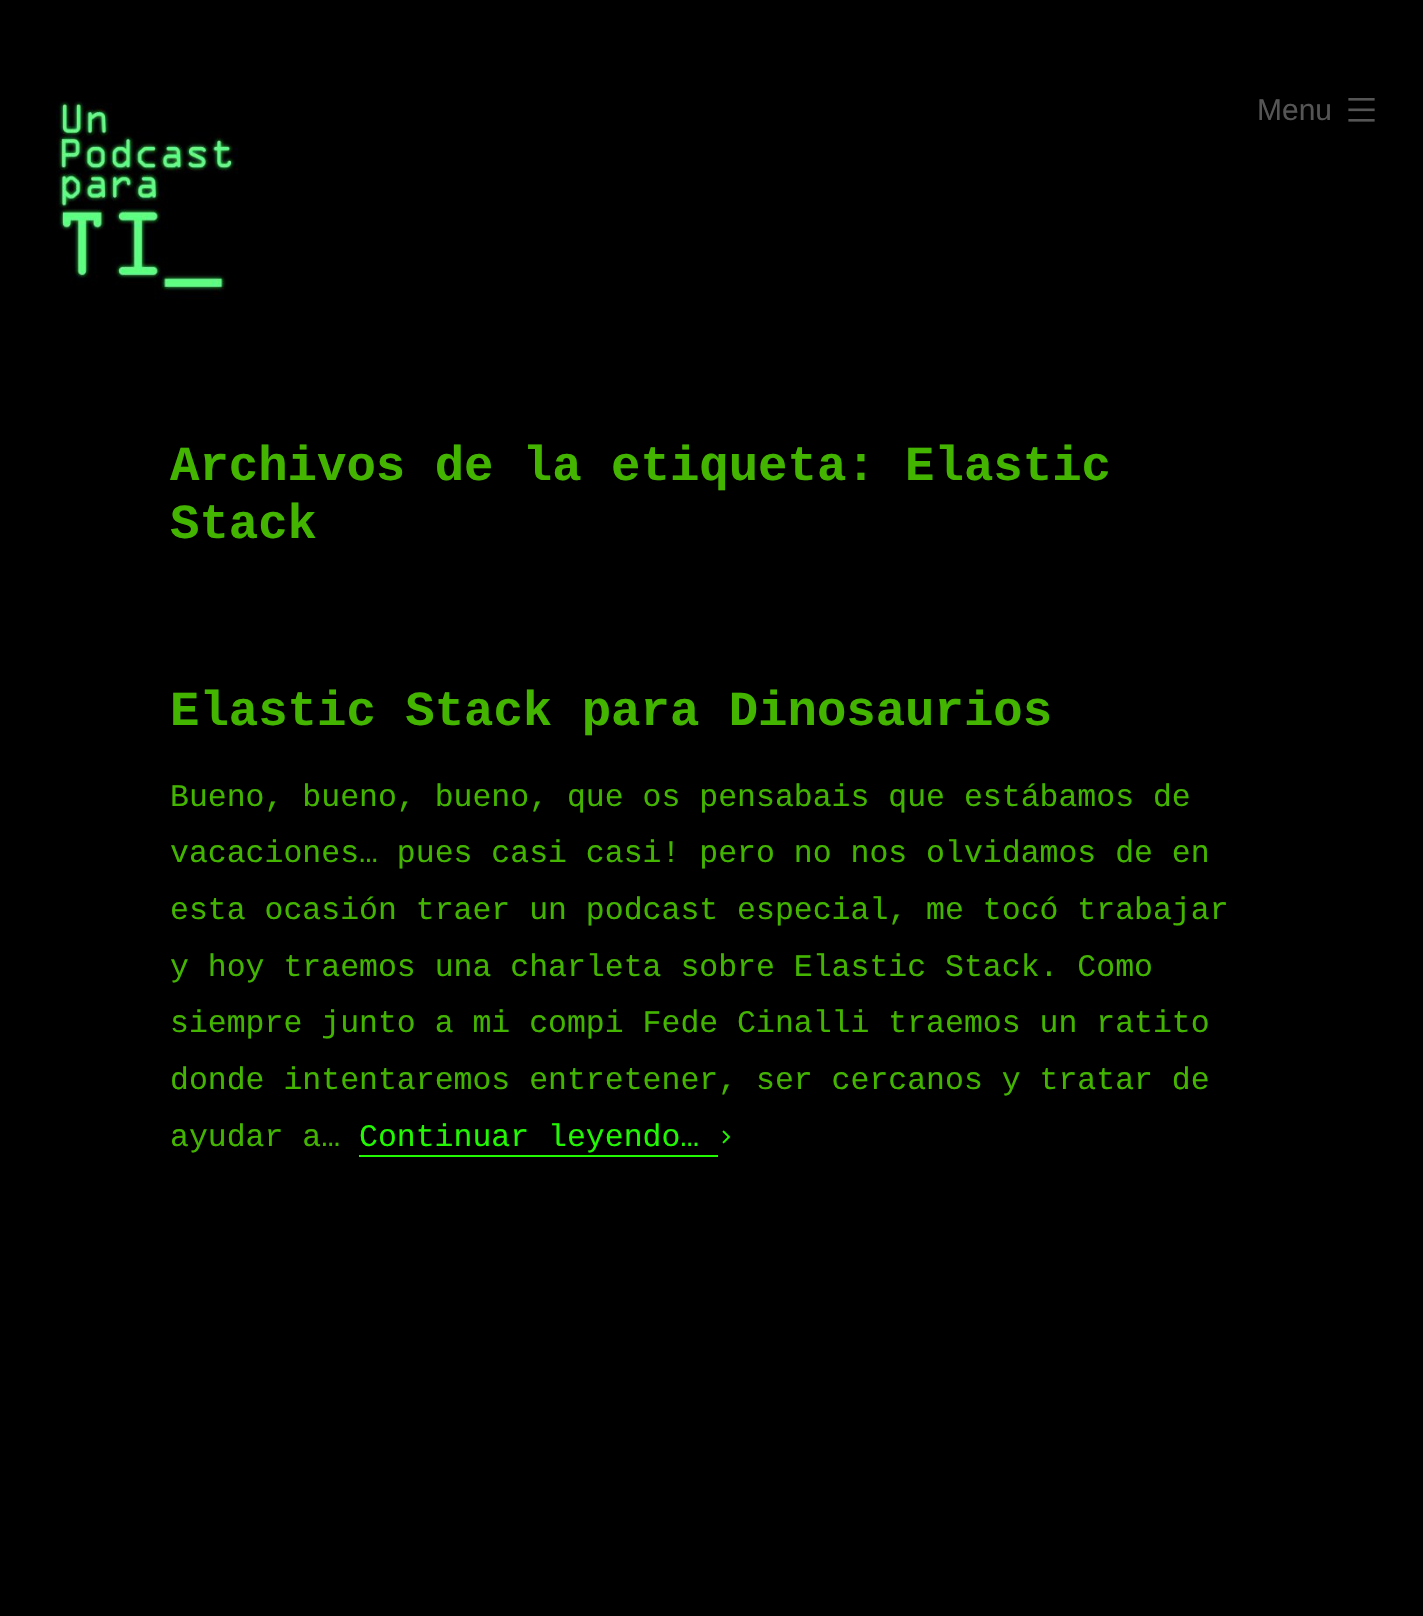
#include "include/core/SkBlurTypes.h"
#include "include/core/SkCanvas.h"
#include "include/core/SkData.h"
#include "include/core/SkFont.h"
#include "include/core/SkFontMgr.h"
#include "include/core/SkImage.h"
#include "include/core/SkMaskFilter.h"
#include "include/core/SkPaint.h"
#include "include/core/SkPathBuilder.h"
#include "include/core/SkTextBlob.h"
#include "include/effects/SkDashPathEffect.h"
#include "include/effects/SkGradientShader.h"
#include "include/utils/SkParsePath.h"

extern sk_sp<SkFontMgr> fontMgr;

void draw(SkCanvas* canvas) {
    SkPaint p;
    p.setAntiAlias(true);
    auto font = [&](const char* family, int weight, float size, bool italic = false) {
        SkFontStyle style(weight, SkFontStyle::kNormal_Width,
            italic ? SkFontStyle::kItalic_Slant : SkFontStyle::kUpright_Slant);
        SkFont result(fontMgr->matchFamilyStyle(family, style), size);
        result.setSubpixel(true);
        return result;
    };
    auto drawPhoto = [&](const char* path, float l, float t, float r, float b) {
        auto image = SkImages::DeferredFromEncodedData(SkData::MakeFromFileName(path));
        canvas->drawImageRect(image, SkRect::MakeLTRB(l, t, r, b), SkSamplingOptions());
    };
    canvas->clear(0xFF000000);
    drawPhoto("media/1.png", 56, 101, 239, 299);
    auto font1 = font("Liberation Sans", 400, 30);
    p.setColor(0xFF555555);
    canvas->drawString("Menu", 1257, 120, font1, p);
    drawPhoto("media/2.png", 1348, 98, 1375, 122);
    auto font2 = font("Liberation Mono", 700, 49);
    p.setColor(0xFF43B501);
    {
        const struct { const char* s; float x, y; } items[] = {
            {"Archivos de la etiqueta: Elastic", 170, 480},
            {"Stack", 170, 538},
            {"Elastic Stack para Dinosaurios", 170, 725},
        };
        for (auto [s, x, y] : items) {
            canvas->drawString(s, x, y, font2, p);
        }
    }
    auto font3 = font("Liberation Mono", 400, 31.5f);
    {
        const struct { const char* s; float x, y; } items[] = {
            {"Bueno, bueno, bueno, que os pensabais que estábamos de", 170, 806},
            {"vacaciones… pues casi casi! pero no nos olvidamos de en", 170, 862},
            {"esta ocasión traer un podcast especial, me tocó trabajar", 170, 919},
            {"y hoy traemos una charleta sobre Elastic Stack. Como", 170, 976},
            {"siempre junto a mi compi Fede Cinalli traemos un ratito", 170, 1032},
            {"donde intentaremos entretener, ser cercanos y tratar de", 170, 1089},
            {"ayudar a…", 170, 1146},
        };
        for (auto [s, x, y] : items) {
            canvas->drawString(s, x, y, font3, p);
        }
    }
    p.setColor(0xFF22F801);
    canvas->drawString("Continuar leyendo…", 359, 1146, font3, p);
    canvas->drawRect(SkRect::MakeLTRB(359, 1155, 718, 1157), p);
    drawPhoto("media/3.png", 722, 1130, 731, 1144);
}
